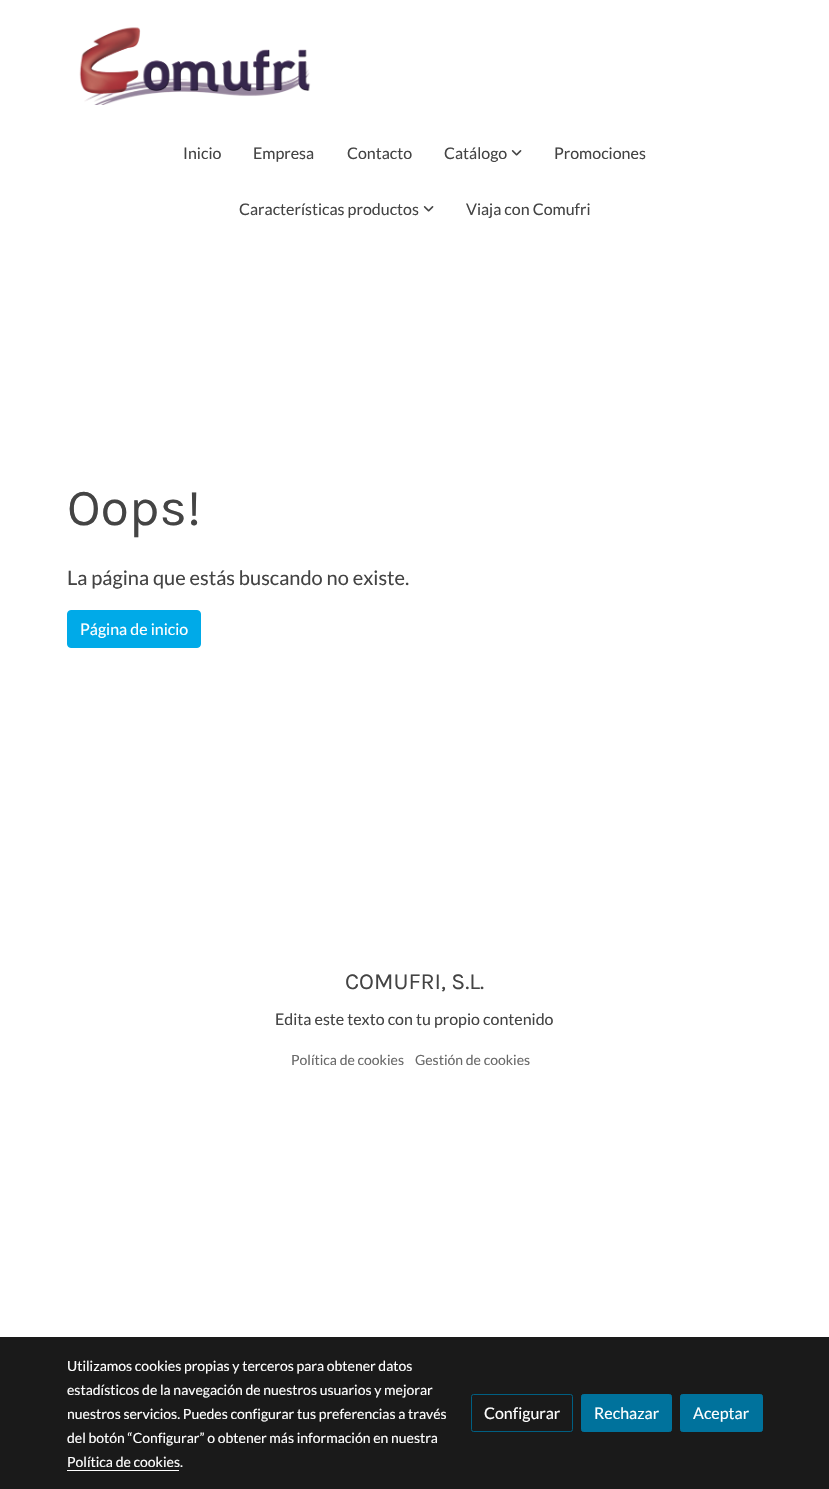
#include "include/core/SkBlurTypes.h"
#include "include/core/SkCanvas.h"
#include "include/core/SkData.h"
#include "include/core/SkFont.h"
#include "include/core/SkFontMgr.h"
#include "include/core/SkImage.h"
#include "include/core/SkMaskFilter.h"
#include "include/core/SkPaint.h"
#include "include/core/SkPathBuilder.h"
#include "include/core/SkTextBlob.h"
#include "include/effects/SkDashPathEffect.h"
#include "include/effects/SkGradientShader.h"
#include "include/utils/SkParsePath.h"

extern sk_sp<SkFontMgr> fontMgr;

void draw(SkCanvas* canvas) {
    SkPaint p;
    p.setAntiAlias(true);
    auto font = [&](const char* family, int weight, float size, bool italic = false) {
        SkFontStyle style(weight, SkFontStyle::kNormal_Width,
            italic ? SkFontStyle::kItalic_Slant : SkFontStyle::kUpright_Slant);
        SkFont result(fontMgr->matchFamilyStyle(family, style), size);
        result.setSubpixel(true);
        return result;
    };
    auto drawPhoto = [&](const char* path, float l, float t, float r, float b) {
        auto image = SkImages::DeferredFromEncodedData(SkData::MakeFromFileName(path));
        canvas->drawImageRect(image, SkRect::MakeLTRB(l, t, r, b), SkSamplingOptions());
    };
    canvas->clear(0xFFFFFFFF);
    drawPhoto("media/1.png", 79, 27, 311, 105);
    auto font1 = font("Lato", 400, 16);
    p.setColor(0xFF444444);
    {
        const struct { const char* s; float x, y; } items[] = {
            {"Inicio", 183, 159},
            {"Empresa", 253, 159},
            {"Contacto", 347, 159},
            {"Catálogo", 444, 159},
        };
        for (auto [s, x, y] : items) {
            canvas->drawString(s, x, y, font1, p);
        }
    }
    drawPhoto("media/2.png", 511, 150, 522, 156);
    canvas->drawString("Promociones", 554, 159, font1, p);
    canvas->drawString("Características productos", 239, 215, font1, p);
    drawPhoto("media/2.png", 423, 206, 434, 212);
    canvas->drawString("Viaja con Comufri", 466, 215, font1, p);
    auto font2 = font("Karla", 400, 52);
    canvas->drawString("Oops!", 67, 525, font2, p);
    auto font3 = font("Lato", 400, 20);
    canvas->drawString("La página que estás buscando no existe.", 67, 585, font3, p);
    p.setColor(0xFF00AAE8);
    canvas->drawRoundRect(SkRect::MakeLTRB(67.5f, 610.5f, 200.5f, 647.5f), 3.5f, 3.5f, p);
    p.setStyle(SkPaint::kStroke_Style);
    p.setStrokeWidth(1);
    canvas->drawRoundRect(SkRect::MakeLTRB(67.5f, 610.5f, 200.5f, 647.5f), 3.5f, 3.5f, p);
    p.setStyle(SkPaint::kFill_Style);
    p.setColor(0xFFFFFFFF);
    canvas->drawString("Página de inicio", 80, 635, font1, p);
    auto font4 = font("Karla", 400, 23);
    p.setColor(0xFF444444);
    canvas->drawString("COMUFRI, S.L.", 345, 989, font4, p);
    canvas->drawString("Edita este texto con tu propio contenido", 275, 1025, font1, p);
    auto font5 = font("Lato", 400, 14);
    p.setColor(0xFF696969);
    canvas->drawString("Política de cookies", 291, 1065, font5, p);
    canvas->drawString("Gestión de cookies", 415, 1065, font5, p);
    p.setColor(0xFF1A1A1A);
    canvas->drawRect(SkRect::MakeLTRB(0, 1337, 829, 1489), p);
    p.setColor(0xFFFFFFFF);
    {
        const struct { const char* s; float x, y; } items[] = {
            {"Utilizamos cookies propias y terceros para obtener datos", 67, 1371},
            {"estadísticos de la navegación de nuestros usuarios y mejorar", 67, 1395},
            {"nuestros servicios. Puedes configurar tus preferencias a través", 67, 1419},
            {"del botón “Configurar” o obtener más información en nuestra", 67, 1443},
            {"Política de cookies.", 67, 1467},
        };
        for (auto [s, x, y] : items) {
            canvas->drawString(s, x, y, font5, p);
        }
    }
    canvas->drawRect(SkRect::MakeLTRB(67, 1470, 179, 1471), p);
    p.setStyle(SkPaint::kStroke_Style);
    p.setColor(0xFF005F82);
    canvas->drawRoundRect(SkRect::MakeLTRB(471.5f, 1394.5f, 572.5f, 1431.5f), 2, 2, p);
    p.setStyle(SkPaint::kFill_Style);
    p.setColor(0xFFFFFFFF);
    canvas->drawString("Configurar", 484, 1419, font1, p);
    p.setColor(0xFF00729C);
    canvas->drawRoundRect(SkRect::MakeLTRB(581.5f, 1394.5f, 671.5f, 1431.5f), 2, 2, p);
    p.setStyle(SkPaint::kStroke_Style);
    canvas->drawRoundRect(SkRect::MakeLTRB(581.5f, 1394.5f, 671.5f, 1431.5f), 2, 2, p);
    p.setStyle(SkPaint::kFill_Style);
    p.setColor(0xFFFFFFFF);
    canvas->drawString("Rechazar", 594, 1419, font1, p);
    p.setColor(0xFF00729C);
    canvas->drawRoundRect(SkRect::MakeLTRB(680.5f, 1394.5f, 762.5f, 1431.5f), 2, 2, p);
    p.setStyle(SkPaint::kStroke_Style);
    canvas->drawRoundRect(SkRect::MakeLTRB(680.5f, 1394.5f, 762.5f, 1431.5f), 2, 2, p);
    p.setStyle(SkPaint::kFill_Style);
    p.setColor(0xFFFFFFFF);
    canvas->drawString("Aceptar", 693, 1419, font1, p);
}
